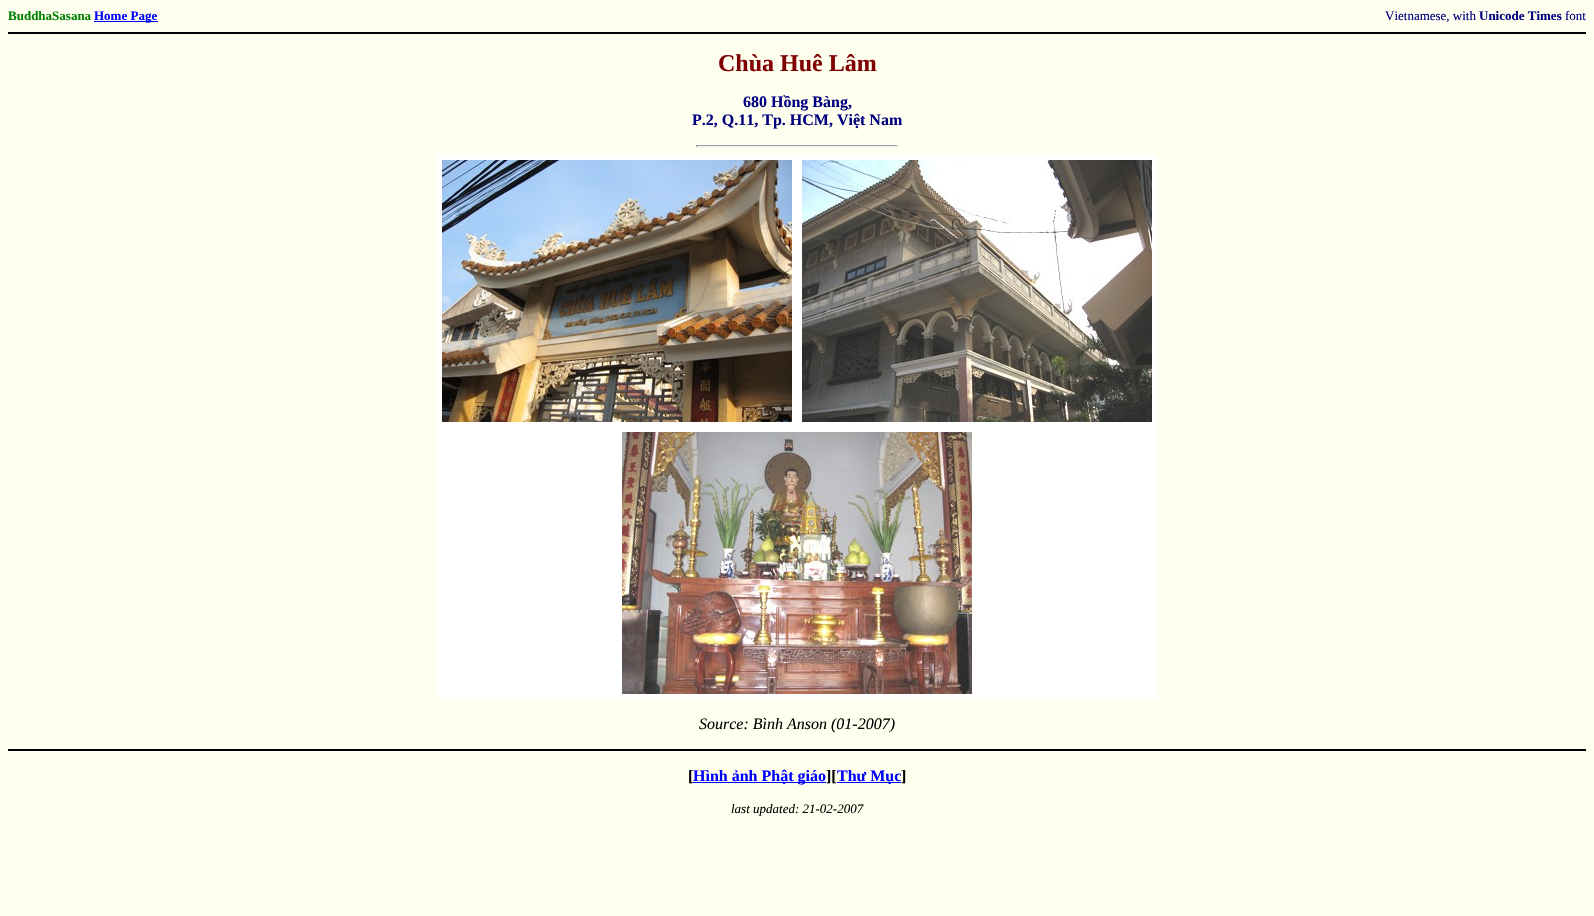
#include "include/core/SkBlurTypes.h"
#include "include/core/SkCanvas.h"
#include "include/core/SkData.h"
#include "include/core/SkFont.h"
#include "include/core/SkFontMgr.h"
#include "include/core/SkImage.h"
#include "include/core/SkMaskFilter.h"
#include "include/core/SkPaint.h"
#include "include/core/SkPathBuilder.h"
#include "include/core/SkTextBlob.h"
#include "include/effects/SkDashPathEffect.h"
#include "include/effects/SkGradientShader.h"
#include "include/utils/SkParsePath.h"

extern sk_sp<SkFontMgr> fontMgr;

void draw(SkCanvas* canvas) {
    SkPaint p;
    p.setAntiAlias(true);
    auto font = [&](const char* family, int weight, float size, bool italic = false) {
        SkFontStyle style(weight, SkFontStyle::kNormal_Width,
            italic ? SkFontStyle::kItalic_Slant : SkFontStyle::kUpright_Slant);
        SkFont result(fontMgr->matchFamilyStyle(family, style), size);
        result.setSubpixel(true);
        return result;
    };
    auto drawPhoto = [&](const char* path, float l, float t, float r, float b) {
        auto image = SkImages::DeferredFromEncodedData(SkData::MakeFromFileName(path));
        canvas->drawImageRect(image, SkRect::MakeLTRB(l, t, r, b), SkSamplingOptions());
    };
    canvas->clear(0xFFFFFFF0);
    auto font1 = font("Liberation Serif", 700, 13);
    p.setColor(0xFF008000);
    canvas->drawString("BuddhaSasana", 8, 20, font1, p);
    p.setColor(0xFF0000FF);
    canvas->drawRect(SkRect::MakeLTRB(94, 21, 158, 22), p);
    canvas->drawString("Home Page", 94, 20, font1, p);
    auto font2 = font("Liberation Serif", 400, 13);
    p.setColor(0xFF000080);
    canvas->drawString("Vietnamese, with", 1385, 20, font2, p);
    canvas->drawString("Unicode Times", 1479, 20, font1, p);
    canvas->drawString("font", 1565, 20, font2, p);
    p.setColor(0xFF000000);
    canvas->drawRect(SkRect::MakeLTRB(8, 32, 1586, 34), p);
    auto font3 = font("Liberation Serif", 700, 24);
    p.setColor(0xFF800000);
    canvas->drawString("Chùa Huê Lâm", 718, 71, font3, p);
    auto font4 = font("Liberation Serif", 700, 16);
    p.setColor(0xFF000080);
    canvas->drawString("680 Hồng Bàng,", 743, 107, font4, p);
    canvas->drawString("P.2, Q.11, Tp. HCM, Việt Nam", 692, 125, font4, p);
    {
        const struct { float l, t, r, b; SkColor color; } items[] = {
            {696, 145, 898, 146, 0xFF9F9F9F},
            {897, 145, 898, 147, 0xFFEEEEEE},
            {696, 146, 898, 147, 0xFFEEEEEE},
            {696, 145, 697, 147, 0xFF9F9F9F},
            {437, 155, 1157, 699, 0xFFFFFFFF},
        };
        for (auto [l, t, r, b, color] : items) {
            p.setColor(color);
            canvas->drawRect(SkRect::MakeLTRB(l, t, r, b), p);
        }
    }
    drawPhoto("media/1.png", 442, 160, 792, 422);
    drawPhoto("media/2.png", 802, 160, 1152, 422);
    drawPhoto("media/3.png", 622, 432, 972, 694);
    auto font5 = font("Liberation Serif", 400, 16, true);
    p.setColor(0xFF000000);
    canvas->drawString("Source: Bình Anson (01-2007)", 699, 729, font5, p);
    canvas->drawRect(SkRect::MakeLTRB(8, 749, 1586, 751), p);
    canvas->drawString("[", 688, 781, font4, p);
    p.setColor(0xFF0000FF);
    canvas->drawRect(SkRect::MakeLTRB(693, 782, 826, 783), p);
    canvas->drawString("Hình ảnh Phật giáo", 693, 781, font4, p);
    p.setColor(0xFF000000);
    canvas->drawString("][", 826, 781, font4, p);
    p.setColor(0xFF0000FF);
    canvas->drawRect(SkRect::MakeLTRB(837, 782, 901, 783), p);
    canvas->drawString("Thư Mục", 837, 781, font4, p);
    p.setColor(0xFF000000);
    canvas->drawString("]", 901, 781, font4, p);
    auto font6 = font("Liberation Serif", 400, 13, true);
    canvas->drawString("last updated: 21-02-2007", 731, 813, font6, p);
}
